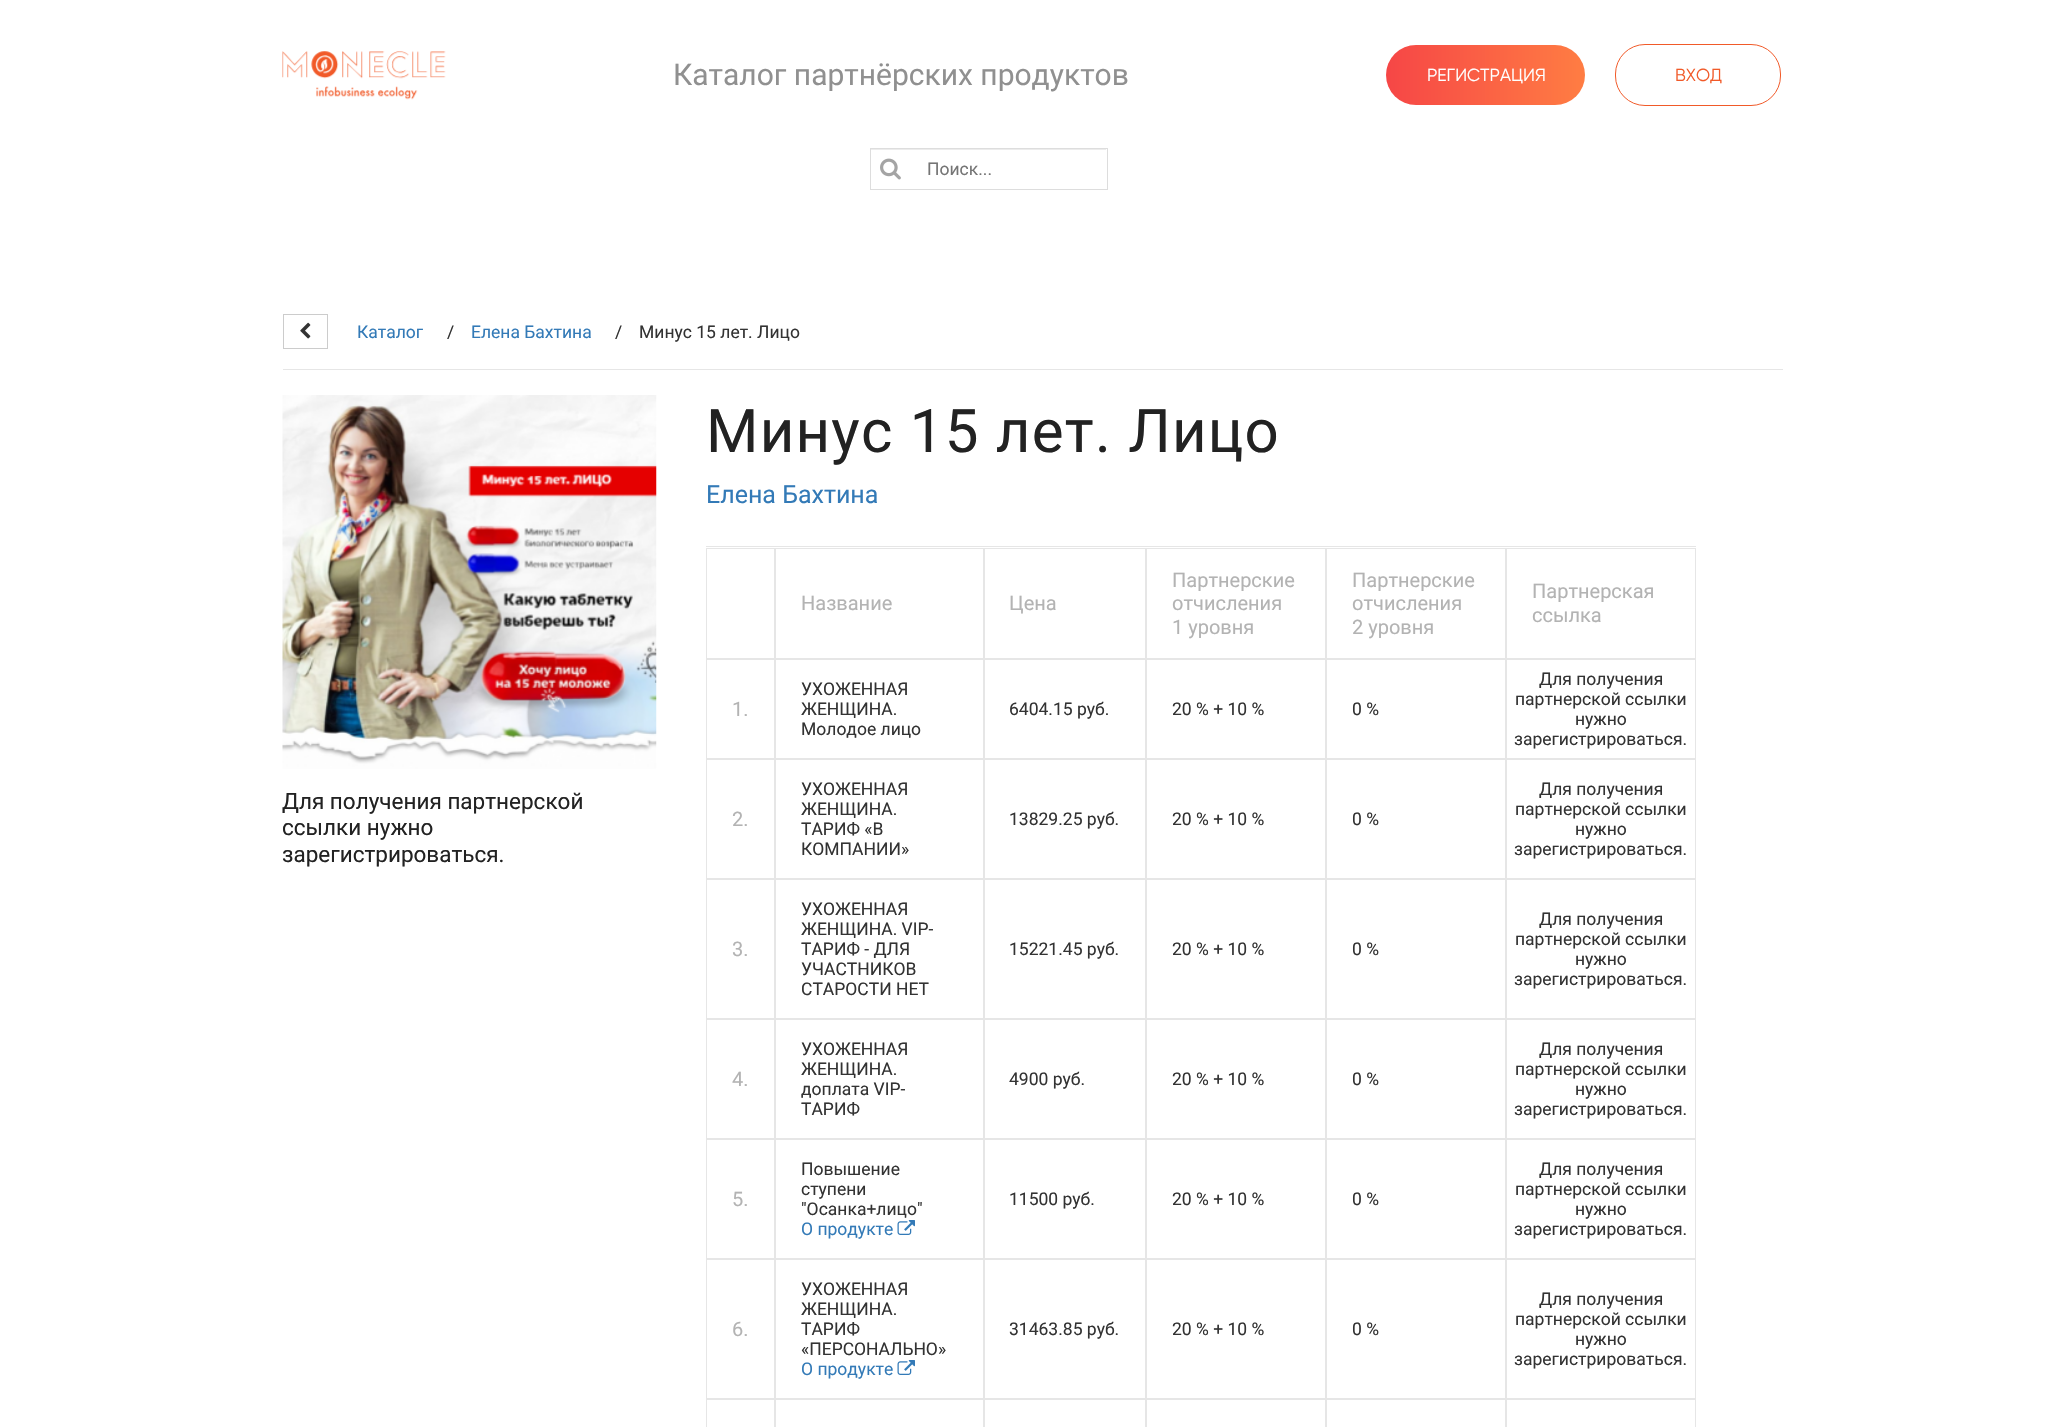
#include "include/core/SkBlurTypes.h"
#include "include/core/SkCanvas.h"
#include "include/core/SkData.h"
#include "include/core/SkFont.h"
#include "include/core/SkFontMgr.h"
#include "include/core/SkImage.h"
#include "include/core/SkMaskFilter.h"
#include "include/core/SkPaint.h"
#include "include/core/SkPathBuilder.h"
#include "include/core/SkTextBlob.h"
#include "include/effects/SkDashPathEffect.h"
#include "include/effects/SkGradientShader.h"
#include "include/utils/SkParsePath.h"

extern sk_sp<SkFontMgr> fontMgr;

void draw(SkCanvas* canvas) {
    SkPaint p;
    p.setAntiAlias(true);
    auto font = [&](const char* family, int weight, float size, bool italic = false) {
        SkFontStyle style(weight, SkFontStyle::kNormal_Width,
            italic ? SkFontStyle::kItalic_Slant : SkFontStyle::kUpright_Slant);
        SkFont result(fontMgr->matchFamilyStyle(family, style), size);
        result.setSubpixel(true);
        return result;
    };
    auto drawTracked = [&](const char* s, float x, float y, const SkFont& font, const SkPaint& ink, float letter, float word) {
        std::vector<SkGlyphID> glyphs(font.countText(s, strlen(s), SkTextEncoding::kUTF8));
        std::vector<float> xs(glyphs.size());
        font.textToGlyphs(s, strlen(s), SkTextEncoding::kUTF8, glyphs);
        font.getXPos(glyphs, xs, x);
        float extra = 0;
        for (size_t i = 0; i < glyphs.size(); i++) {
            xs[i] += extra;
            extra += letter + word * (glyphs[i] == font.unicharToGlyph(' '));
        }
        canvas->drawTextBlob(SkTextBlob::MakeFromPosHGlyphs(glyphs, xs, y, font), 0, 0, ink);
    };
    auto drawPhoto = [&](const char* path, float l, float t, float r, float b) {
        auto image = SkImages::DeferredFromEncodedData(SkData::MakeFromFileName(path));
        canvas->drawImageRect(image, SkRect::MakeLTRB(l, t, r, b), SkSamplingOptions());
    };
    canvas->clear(0xFFFFFFFF);
    drawPhoto("media/1.png", 282, 51, 446, 100);
    auto font1 = font("Roboto", 400, 30);
    p.setColor(0xFF909090);
    canvas->drawString("Каталог партнёрских продуктов", 673, 85, font1, p);
    {
        const SkColor colors[] = {0xFFF64646, 0xFFFF7D43};
        const float stops[] = {0, 1};
        const SkPoint ends[] = {{1386, 75}, {1585, 75}};
        p.setShader(SkGradientShader::MakeLinear(ends, colors, stops, 2, SkTileMode::kClamp));
        p.setAlpha(255);
    }
    canvas->drawRoundRect(SkRect::MakeLTRB(1386, 45, 1585, 105), 30, 30, p);
    auto font2 = font("Gilroy", 400, 17.5f);
    p.setShader(nullptr);
    p.setColor(0xFFFFFFFF);
    canvas->drawString("РЕГИСТРАЦИЯ", 1427, 81, font2, p);
    p.setStyle(SkPaint::kStroke_Style);
    p.setStrokeWidth(1);
    p.setColor(0xFFF15A29);
    canvas->drawRoundRect(SkRect::MakeLTRB(1615.5f, 44.5f, 1780.5f, 105.5f), 29.5f, 29.5f, p);
    p.setStyle(SkPaint::kFill_Style);
    canvas->drawString("ВХОД", 1675, 81, font2, p);
    p.setColor(0xFFECECEC);
    canvas->drawRect(SkRect::MakeLTRB(871, 149, 1106, 150), p);
    p.setStyle(SkPaint::kStroke_Style);
    p.setColor(0xFFDDDDDD);
    canvas->drawRect(SkRect::MakeLTRB(870.5f, 148.5f, 1107.5f, 189.5f), p);
    drawPhoto("media/2.png", 880, 158, 901, 180);
    auto font3 = font("Roboto", 400, 17.5f);
    p.setStyle(SkPaint::kFill_Style);
    p.setColor(0xFF757575);
    canvas->drawString("Поиск...", 927, 175, font3, p);
    p.setColor(0xFFE6E6E6);
    canvas->drawRect(SkRect::MakeLTRB(283, 369, 1783, 370), p);
    p.setStyle(SkPaint::kStroke_Style);
    p.setColor(0xFFCCCCCC);
    canvas->drawRect(SkRect::MakeLTRB(283.5f, 314.5f, 327.5f, 348.5f), p);
    drawPhoto("media/3.png", 300, 322, 311, 339);
    p.setStyle(SkPaint::kFill_Style);
    p.setColor(0xFF337AB7);
    canvas->drawString("Каталог", 357, 338, font3, p);
    p.setColor(0xFF333333);
    canvas->drawString("/", 447, 338, font3, p);
    p.setColor(0xFF337AB7);
    canvas->drawString("Елена Бахтина", 471, 338, font3, p);
    p.setColor(0xFF333333);
    canvas->drawString("/", 615, 338, font3, p);
    canvas->drawString("Минус 15 лет. Лицо", 639, 338, font3, p);
    drawPhoto("media/4.png", 282, 395, 657, 769);
    auto font4 = font("Roboto", 400, 22.5f);
    p.setColor(0xFF222222);
    {
        const struct { const char* s; float x, y; } items[] = {
            {"Для получения партнерской", 282, 809},
            {"ссылки нужно", 282, 835},
            {"зарегистрироваться.", 282, 862},
        };
        for (auto [s, x, y] : items) {
            canvas->drawString(s, x, y, font4, p);
        }
    }
    auto font5 = font("Roboto", 400, 60);
    drawTracked("Минус 15 лет. Лицо", 706, 452, font5, p, 1.25f, 0);
    auto font6 = font("Roboto", 400, 25);
    p.setColor(0xFF337AB7);
    canvas->drawString("Елена Бахтина", 706, 503, font6, p);
    p.setColor(0xFFE6E6E6);
    canvas->drawRect(SkRect::MakeLTRB(706, 546, 1696, 547), p);
    p.setStyle(SkPaint::kStroke_Style);
    canvas->drawRect(SkRect::MakeLTRB(706.5f, 548.5f, 774.5f, 658.5f), p);
    canvas->drawRect(SkRect::MakeLTRB(775.5f, 548.5f, 983.5f, 658.5f), p);
    auto font7 = font("Roboto", 400, 20);
    p.setStyle(SkPaint::kFill_Style);
    p.setColor(0xFFB3B3B3);
    canvas->drawString("Название", 801, 610, font7, p);
    p.setStyle(SkPaint::kStroke_Style);
    p.setColor(0xFFE6E6E6);
    canvas->drawRect(SkRect::MakeLTRB(984.5f, 548.5f, 1145.5f, 658.5f), p);
    p.setStyle(SkPaint::kFill_Style);
    p.setColor(0xFFB3B3B3);
    canvas->drawString("Цена", 1009, 610, font7, p);
    p.setStyle(SkPaint::kStroke_Style);
    p.setColor(0xFFE6E6E6);
    canvas->drawRect(SkRect::MakeLTRB(1146.5f, 548.5f, 1325.5f, 658.5f), p);
    p.setStyle(SkPaint::kFill_Style);
    p.setColor(0xFFB3B3B3);
    {
        const struct { const char* s; float x, y; } items[] = {
            {"Партнерские", 1172, 587},
            {"отчисления", 1172, 610},
            {"1 уровня", 1172, 634},
        };
        for (auto [s, x, y] : items) {
            canvas->drawString(s, x, y, font7, p);
        }
    }
    p.setStyle(SkPaint::kStroke_Style);
    p.setColor(0xFFE6E6E6);
    canvas->drawRect(SkRect::MakeLTRB(1326.5f, 548.5f, 1505.5f, 658.5f), p);
    p.setStyle(SkPaint::kFill_Style);
    p.setColor(0xFFB3B3B3);
    {
        const struct { const char* s; float x, y; } items[] = {
            {"Партнерские", 1352, 587},
            {"отчисления", 1352, 610},
            {"2 уровня", 1352, 634},
        };
        for (auto [s, x, y] : items) {
            canvas->drawString(s, x, y, font7, p);
        }
    }
    p.setStyle(SkPaint::kStroke_Style);
    p.setColor(0xFFE6E6E6);
    canvas->drawRect(SkRect::MakeLTRB(1506.5f, 548.5f, 1695.5f, 658.5f), p);
    p.setStyle(SkPaint::kFill_Style);
    p.setColor(0xFFB3B3B3);
    canvas->drawString("Партнерская", 1532, 598, font7, p);
    canvas->drawString("ссылка", 1532, 622, font7, p);
    p.setStyle(SkPaint::kStroke_Style);
    p.setColor(0xFFE6E6E6);
    canvas->drawRect(SkRect::MakeLTRB(706.5f, 659.5f, 774.5f, 758.5f), p);
    p.setStyle(SkPaint::kFill_Style);
    p.setColor(0xFFB3B3B3);
    canvas->drawString("1.", 732, 716, font7, p);
    p.setStyle(SkPaint::kStroke_Style);
    p.setColor(0xFFE6E6E6);
    canvas->drawRect(SkRect::MakeLTRB(775.5f, 659.5f, 983.5f, 758.5f), p);
    p.setStyle(SkPaint::kFill_Style);
    p.setColor(0xFF333333);
    {
        const struct { const char* s; float x, y; } items[] = {
            {"УХОЖЕННАЯ", 801, 695},
            {"ЖЕНЩИНА.", 801, 715},
            {"Молодое лицо", 801, 735},
        };
        for (auto [s, x, y] : items) {
            canvas->drawString(s, x, y, font3, p);
        }
    }
    p.setStyle(SkPaint::kStroke_Style);
    p.setColor(0xFFE6E6E6);
    canvas->drawRect(SkRect::MakeLTRB(984.5f, 659.5f, 1145.5f, 758.5f), p);
    p.setStyle(SkPaint::kFill_Style);
    p.setColor(0xFF333333);
    canvas->drawString("6404.15 руб.", 1009, 715, font3, p);
    p.setStyle(SkPaint::kStroke_Style);
    p.setColor(0xFFE6E6E6);
    canvas->drawRect(SkRect::MakeLTRB(1146.5f, 659.5f, 1325.5f, 758.5f), p);
    p.setStyle(SkPaint::kFill_Style);
    p.setColor(0xFF333333);
    canvas->drawString("20 % + 10 %", 1172, 715, font3, p);
    p.setStyle(SkPaint::kStroke_Style);
    p.setColor(0xFFE6E6E6);
    canvas->drawRect(SkRect::MakeLTRB(1326.5f, 659.5f, 1505.5f, 758.5f), p);
    p.setStyle(SkPaint::kFill_Style);
    p.setColor(0xFF333333);
    canvas->drawString("0 %", 1352, 715, font3, p);
    p.setStyle(SkPaint::kStroke_Style);
    p.setColor(0xFFE6E6E6);
    canvas->drawRect(SkRect::MakeLTRB(1506.5f, 659.5f, 1695.5f, 758.5f), p);
    p.setStyle(SkPaint::kFill_Style);
    p.setColor(0xFF333333);
    {
        const struct { const char* s; float x, y; } items[] = {
            {"Для получения", 1539, 685},
            {"партнерской ссылки", 1515, 705},
            {"нужно", 1575, 725},
            {"зарегистрироваться.", 1514, 745},
        };
        for (auto [s, x, y] : items) {
            canvas->drawString(s, x, y, font3, p);
        }
    }
    p.setStyle(SkPaint::kStroke_Style);
    p.setColor(0xFFE6E6E6);
    canvas->drawRect(SkRect::MakeLTRB(706.5f, 759.5f, 774.5f, 878.5f), p);
    p.setStyle(SkPaint::kFill_Style);
    p.setColor(0xFFB3B3B3);
    canvas->drawString("2.", 732, 826, font7, p);
    p.setStyle(SkPaint::kStroke_Style);
    p.setColor(0xFFE6E6E6);
    canvas->drawRect(SkRect::MakeLTRB(775.5f, 759.5f, 983.5f, 878.5f), p);
    p.setStyle(SkPaint::kFill_Style);
    p.setColor(0xFF333333);
    {
        const struct { const char* s; float x, y; } items[] = {
            {"УХОЖЕННАЯ", 801, 795},
            {"ЖЕНЩИНА.", 801, 815},
            {"ТАРИФ «В", 801, 835},
            {"КОМПАНИИ»", 801, 855},
        };
        for (auto [s, x, y] : items) {
            canvas->drawString(s, x, y, font3, p);
        }
    }
    p.setStyle(SkPaint::kStroke_Style);
    p.setColor(0xFFE6E6E6);
    canvas->drawRect(SkRect::MakeLTRB(984.5f, 759.5f, 1145.5f, 878.5f), p);
    p.setStyle(SkPaint::kFill_Style);
    p.setColor(0xFF333333);
    canvas->drawString("13829.25 руб.", 1009, 825, font3, p);
    p.setStyle(SkPaint::kStroke_Style);
    p.setColor(0xFFE6E6E6);
    canvas->drawRect(SkRect::MakeLTRB(1146.5f, 759.5f, 1325.5f, 878.5f), p);
    p.setStyle(SkPaint::kFill_Style);
    p.setColor(0xFF333333);
    canvas->drawString("20 % + 10 %", 1172, 825, font3, p);
    p.setStyle(SkPaint::kStroke_Style);
    p.setColor(0xFFE6E6E6);
    canvas->drawRect(SkRect::MakeLTRB(1326.5f, 759.5f, 1505.5f, 878.5f), p);
    p.setStyle(SkPaint::kFill_Style);
    p.setColor(0xFF333333);
    canvas->drawString("0 %", 1352, 825, font3, p);
    p.setStyle(SkPaint::kStroke_Style);
    p.setColor(0xFFE6E6E6);
    canvas->drawRect(SkRect::MakeLTRB(1506.5f, 759.5f, 1695.5f, 878.5f), p);
    p.setStyle(SkPaint::kFill_Style);
    p.setColor(0xFF333333);
    {
        const struct { const char* s; float x, y; } items[] = {
            {"Для получения", 1539, 795},
            {"партнерской ссылки", 1515, 815},
            {"нужно", 1575, 835},
            {"зарегистрироваться.", 1514, 855},
        };
        for (auto [s, x, y] : items) {
            canvas->drawString(s, x, y, font3, p);
        }
    }
    p.setStyle(SkPaint::kStroke_Style);
    p.setColor(0xFFE6E6E6);
    canvas->drawRect(SkRect::MakeLTRB(706.5f, 879.5f, 774.5f, 1018.5f), p);
    p.setStyle(SkPaint::kFill_Style);
    p.setColor(0xFFB3B3B3);
    canvas->drawString("3.", 732, 956, font7, p);
    p.setStyle(SkPaint::kStroke_Style);
    p.setColor(0xFFE6E6E6);
    canvas->drawRect(SkRect::MakeLTRB(775.5f, 879.5f, 983.5f, 1018.5f), p);
    p.setStyle(SkPaint::kFill_Style);
    p.setColor(0xFF333333);
    {
        const struct { const char* s; float x, y; } items[] = {
            {"УХОЖЕННАЯ", 801, 915},
            {"ЖЕНЩИНА. VIP-", 801, 935},
            {"ТАРИФ - ДЛЯ", 801, 955},
            {"УЧАСТНИКОВ", 801, 975},
            {"СТАРОСТИ НЕТ", 801, 995},
        };
        for (auto [s, x, y] : items) {
            canvas->drawString(s, x, y, font3, p);
        }
    }
    p.setStyle(SkPaint::kStroke_Style);
    p.setColor(0xFFE6E6E6);
    canvas->drawRect(SkRect::MakeLTRB(984.5f, 879.5f, 1145.5f, 1018.5f), p);
    p.setStyle(SkPaint::kFill_Style);
    p.setColor(0xFF333333);
    canvas->drawString("15221.45 руб.", 1009, 955, font3, p);
    p.setStyle(SkPaint::kStroke_Style);
    p.setColor(0xFFE6E6E6);
    canvas->drawRect(SkRect::MakeLTRB(1146.5f, 879.5f, 1325.5f, 1018.5f), p);
    p.setStyle(SkPaint::kFill_Style);
    p.setColor(0xFF333333);
    canvas->drawString("20 % + 10 %", 1172, 955, font3, p);
    p.setStyle(SkPaint::kStroke_Style);
    p.setColor(0xFFE6E6E6);
    canvas->drawRect(SkRect::MakeLTRB(1326.5f, 879.5f, 1505.5f, 1018.5f), p);
    p.setStyle(SkPaint::kFill_Style);
    p.setColor(0xFF333333);
    canvas->drawString("0 %", 1352, 955, font3, p);
    p.setStyle(SkPaint::kStroke_Style);
    p.setColor(0xFFE6E6E6);
    canvas->drawRect(SkRect::MakeLTRB(1506.5f, 879.5f, 1695.5f, 1018.5f), p);
    p.setStyle(SkPaint::kFill_Style);
    p.setColor(0xFF333333);
    {
        const struct { const char* s; float x, y; } items[] = {
            {"Для получения", 1539, 925},
            {"партнерской ссылки", 1515, 945},
            {"нужно", 1575, 965},
            {"зарегистрироваться.", 1514, 985},
        };
        for (auto [s, x, y] : items) {
            canvas->drawString(s, x, y, font3, p);
        }
    }
    p.setStyle(SkPaint::kStroke_Style);
    p.setColor(0xFFE6E6E6);
    canvas->drawRect(SkRect::MakeLTRB(706.5f, 1019.5f, 774.5f, 1138.5f), p);
    p.setStyle(SkPaint::kFill_Style);
    p.setColor(0xFFB3B3B3);
    canvas->drawString("4.", 732, 1086, font7, p);
    p.setStyle(SkPaint::kStroke_Style);
    p.setColor(0xFFE6E6E6);
    canvas->drawRect(SkRect::MakeLTRB(775.5f, 1019.5f, 983.5f, 1138.5f), p);
    p.setStyle(SkPaint::kFill_Style);
    p.setColor(0xFF333333);
    {
        const struct { const char* s; float x, y; } items[] = {
            {"УХОЖЕННАЯ", 801, 1055},
            {"ЖЕНЩИНА.", 801, 1075},
            {"доплата VIP-", 801, 1095},
            {"ТАРИФ", 801, 1115},
        };
        for (auto [s, x, y] : items) {
            canvas->drawString(s, x, y, font3, p);
        }
    }
    p.setStyle(SkPaint::kStroke_Style);
    p.setColor(0xFFE6E6E6);
    canvas->drawRect(SkRect::MakeLTRB(984.5f, 1019.5f, 1145.5f, 1138.5f), p);
    p.setStyle(SkPaint::kFill_Style);
    p.setColor(0xFF333333);
    canvas->drawString("4900 руб.", 1009, 1085, font3, p);
    p.setStyle(SkPaint::kStroke_Style);
    p.setColor(0xFFE6E6E6);
    canvas->drawRect(SkRect::MakeLTRB(1146.5f, 1019.5f, 1325.5f, 1138.5f), p);
    p.setStyle(SkPaint::kFill_Style);
    p.setColor(0xFF333333);
    canvas->drawString("20 % + 10 %", 1172, 1085, font3, p);
    p.setStyle(SkPaint::kStroke_Style);
    p.setColor(0xFFE6E6E6);
    canvas->drawRect(SkRect::MakeLTRB(1326.5f, 1019.5f, 1505.5f, 1138.5f), p);
    p.setStyle(SkPaint::kFill_Style);
    p.setColor(0xFF333333);
    canvas->drawString("0 %", 1352, 1085, font3, p);
    p.setStyle(SkPaint::kStroke_Style);
    p.setColor(0xFFE6E6E6);
    canvas->drawRect(SkRect::MakeLTRB(1506.5f, 1019.5f, 1695.5f, 1138.5f), p);
    p.setStyle(SkPaint::kFill_Style);
    p.setColor(0xFF333333);
    {
        const struct { const char* s; float x, y; } items[] = {
            {"Для получения", 1539, 1055},
            {"партнерской ссылки", 1515, 1075},
            {"нужно", 1575, 1095},
            {"зарегистрироваться.", 1514, 1115},
        };
        for (auto [s, x, y] : items) {
            canvas->drawString(s, x, y, font3, p);
        }
    }
    p.setStyle(SkPaint::kStroke_Style);
    p.setColor(0xFFE6E6E6);
    canvas->drawRect(SkRect::MakeLTRB(706.5f, 1139.5f, 774.5f, 1258.5f), p);
    p.setStyle(SkPaint::kFill_Style);
    p.setColor(0xFFB3B3B3);
    canvas->drawString("5.", 732, 1206, font7, p);
    p.setStyle(SkPaint::kStroke_Style);
    p.setColor(0xFFE6E6E6);
    canvas->drawRect(SkRect::MakeLTRB(775.5f, 1139.5f, 983.5f, 1258.5f), p);
    p.setStyle(SkPaint::kFill_Style);
    p.setColor(0xFF333333);
    {
        const struct { const char* s; float x, y; } items[] = {
            {"Повышение", 801, 1175},
            {"ступени", 801, 1195},
            {"\"Осанка+лицо\"", 801, 1215},
        };
        for (auto [s, x, y] : items) {
            canvas->drawString(s, x, y, font3, p);
        }
    }
    p.setColor(0xFF337AB7);
    canvas->drawString("О продукте", 801, 1235, font3, p);
    drawPhoto("media/5.png", 897, 1220, 915, 1235);
    p.setStyle(SkPaint::kStroke_Style);
    p.setColor(0xFFE6E6E6);
    canvas->drawRect(SkRect::MakeLTRB(984.5f, 1139.5f, 1145.5f, 1258.5f), p);
    p.setStyle(SkPaint::kFill_Style);
    p.setColor(0xFF333333);
    canvas->drawString("11500 руб.", 1009, 1205, font3, p);
    p.setStyle(SkPaint::kStroke_Style);
    p.setColor(0xFFE6E6E6);
    canvas->drawRect(SkRect::MakeLTRB(1146.5f, 1139.5f, 1325.5f, 1258.5f), p);
    p.setStyle(SkPaint::kFill_Style);
    p.setColor(0xFF333333);
    canvas->drawString("20 % + 10 %", 1172, 1205, font3, p);
    p.setStyle(SkPaint::kStroke_Style);
    p.setColor(0xFFE6E6E6);
    canvas->drawRect(SkRect::MakeLTRB(1326.5f, 1139.5f, 1505.5f, 1258.5f), p);
    p.setStyle(SkPaint::kFill_Style);
    p.setColor(0xFF333333);
    canvas->drawString("0 %", 1352, 1205, font3, p);
    p.setStyle(SkPaint::kStroke_Style);
    p.setColor(0xFFE6E6E6);
    canvas->drawRect(SkRect::MakeLTRB(1506.5f, 1139.5f, 1695.5f, 1258.5f), p);
    p.setStyle(SkPaint::kFill_Style);
    p.setColor(0xFF333333);
    {
        const struct { const char* s; float x, y; } items[] = {
            {"Для получения", 1539, 1175},
            {"партнерской ссылки", 1515, 1195},
            {"нужно", 1575, 1215},
            {"зарегистрироваться.", 1514, 1235},
        };
        for (auto [s, x, y] : items) {
            canvas->drawString(s, x, y, font3, p);
        }
    }
    p.setStyle(SkPaint::kStroke_Style);
    p.setColor(0xFFE6E6E6);
    canvas->drawRect(SkRect::MakeLTRB(706.5f, 1259.5f, 774.5f, 1398.5f), p);
    p.setStyle(SkPaint::kFill_Style);
    p.setColor(0xFFB3B3B3);
    canvas->drawString("6.", 732, 1336, font7, p);
    p.setStyle(SkPaint::kStroke_Style);
    p.setColor(0xFFE6E6E6);
    canvas->drawRect(SkRect::MakeLTRB(775.5f, 1259.5f, 983.5f, 1398.5f), p);
    p.setStyle(SkPaint::kFill_Style);
    p.setColor(0xFF333333);
    {
        const struct { const char* s; float x, y; } items[] = {
            {"УХОЖЕННАЯ", 801, 1295},
            {"ЖЕНЩИНА.", 801, 1315},
            {"ТАРИФ", 801, 1335},
            {"«ПЕРСОНАЛЬНО»", 801, 1355},
        };
        for (auto [s, x, y] : items) {
            canvas->drawString(s, x, y, font3, p);
        }
    }
    p.setColor(0xFF337AB7);
    canvas->drawString("О продукте", 801, 1375, font3, p);
    drawPhoto("media/5.png", 897, 1360, 915, 1375);
    p.setStyle(SkPaint::kStroke_Style);
    p.setColor(0xFFE6E6E6);
    canvas->drawRect(SkRect::MakeLTRB(984.5f, 1259.5f, 1145.5f, 1398.5f), p);
    p.setStyle(SkPaint::kFill_Style);
    p.setColor(0xFF333333);
    canvas->drawString("31463.85 руб.", 1009, 1335, font3, p);
    p.setStyle(SkPaint::kStroke_Style);
    p.setColor(0xFFE6E6E6);
    canvas->drawRect(SkRect::MakeLTRB(1146.5f, 1259.5f, 1325.5f, 1398.5f), p);
    p.setStyle(SkPaint::kFill_Style);
    p.setColor(0xFF333333);
    canvas->drawString("20 % + 10 %", 1172, 1335, font3, p);
    p.setStyle(SkPaint::kStroke_Style);
    p.setColor(0xFFE6E6E6);
    canvas->drawRect(SkRect::MakeLTRB(1326.5f, 1259.5f, 1505.5f, 1398.5f), p);
    p.setStyle(SkPaint::kFill_Style);
    p.setColor(0xFF333333);
    canvas->drawString("0 %", 1352, 1335, font3, p);
    p.setStyle(SkPaint::kStroke_Style);
    p.setColor(0xFFE6E6E6);
    canvas->drawRect(SkRect::MakeLTRB(1506.5f, 1259.5f, 1695.5f, 1398.5f), p);
    p.setStyle(SkPaint::kFill_Style);
    p.setColor(0xFF333333);
    {
        const struct { const char* s; float x, y; } items[] = {
            {"Для получения", 1539, 1305},
            {"партнерской ссылки", 1515, 1325},
            {"нужно", 1575, 1345},
            {"зарегистрироваться.", 1514, 1365},
        };
        for (auto [s, x, y] : items) {
            canvas->drawString(s, x, y, font3, p);
        }
    }
    p.setStyle(SkPaint::kStroke_Style);
    p.setColor(0xFFE6E6E6);
    canvas->drawRect(SkRect::MakeLTRB(706.5f, 1399.5f, 774.5f, 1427.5f), p);
    canvas->drawRect(SkRect::MakeLTRB(775.5f, 1399.5f, 983.5f, 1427.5f), p);
    canvas->drawRect(SkRect::MakeLTRB(984.5f, 1399.5f, 1145.5f, 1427.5f), p);
    canvas->drawRect(SkRect::MakeLTRB(1146.5f, 1399.5f, 1325.5f, 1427.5f), p);
    canvas->drawRect(SkRect::MakeLTRB(1326.5f, 1399.5f, 1505.5f, 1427.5f), p);
    canvas->drawRect(SkRect::MakeLTRB(1506.5f, 1399.5f, 1695.5f, 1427.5f), p);
}
